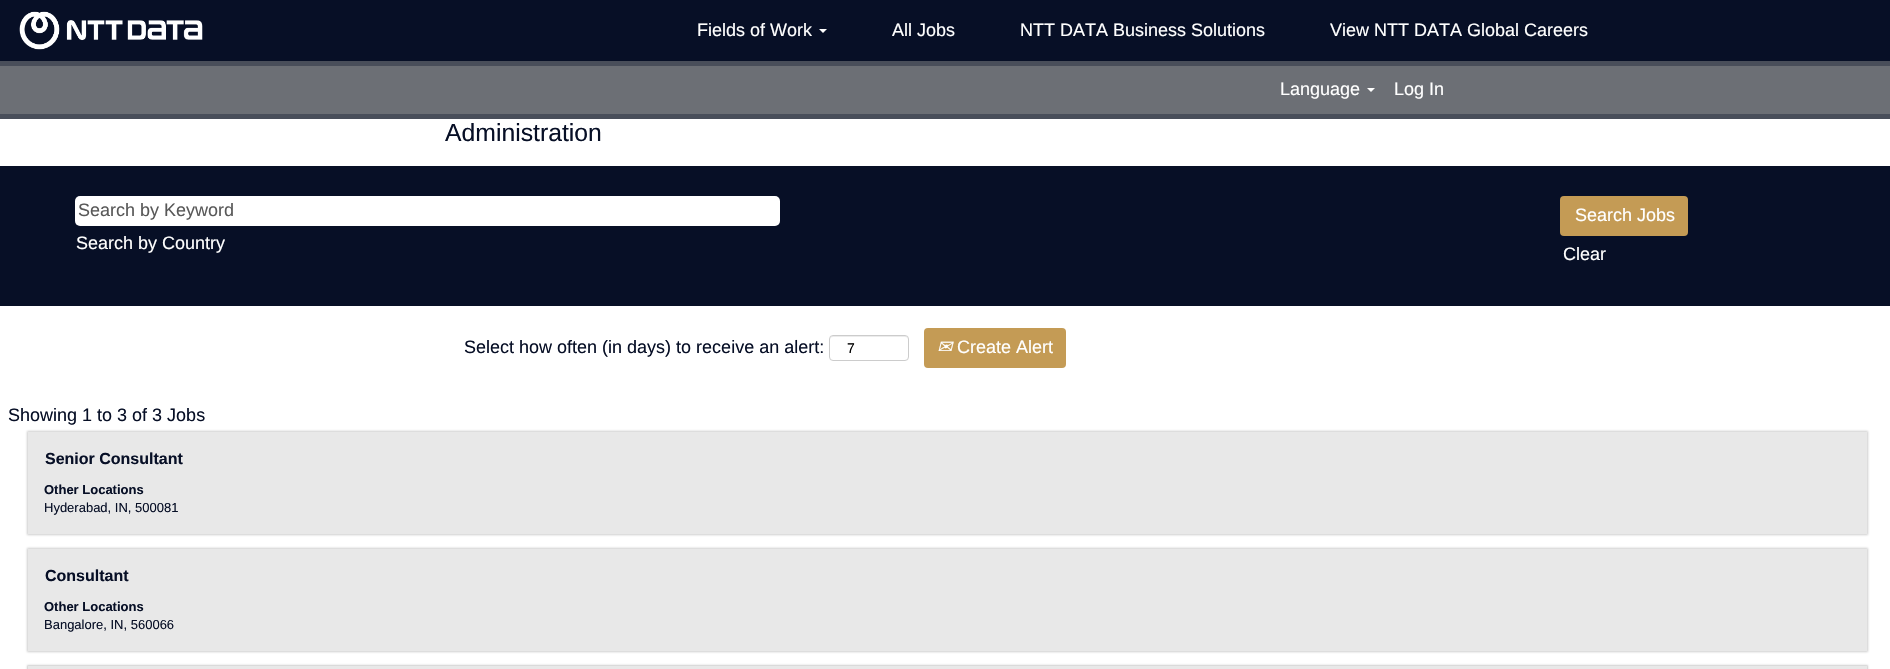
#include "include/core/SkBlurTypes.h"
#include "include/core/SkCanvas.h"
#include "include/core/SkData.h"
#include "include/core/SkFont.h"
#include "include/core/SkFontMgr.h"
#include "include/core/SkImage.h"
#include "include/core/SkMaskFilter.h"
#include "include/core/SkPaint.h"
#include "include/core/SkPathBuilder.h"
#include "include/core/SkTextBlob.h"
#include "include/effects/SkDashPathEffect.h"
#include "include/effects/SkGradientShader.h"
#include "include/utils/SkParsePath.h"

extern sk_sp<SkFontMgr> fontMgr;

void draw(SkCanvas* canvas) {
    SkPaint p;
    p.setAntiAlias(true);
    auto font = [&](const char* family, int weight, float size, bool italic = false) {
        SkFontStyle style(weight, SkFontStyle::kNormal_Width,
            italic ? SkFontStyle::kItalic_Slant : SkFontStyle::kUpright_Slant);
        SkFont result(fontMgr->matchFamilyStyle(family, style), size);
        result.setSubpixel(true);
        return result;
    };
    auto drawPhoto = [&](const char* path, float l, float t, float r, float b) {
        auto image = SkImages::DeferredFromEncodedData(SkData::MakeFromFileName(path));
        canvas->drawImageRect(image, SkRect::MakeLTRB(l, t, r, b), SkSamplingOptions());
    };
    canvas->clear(0xFFFFFFFF);
    p.setColor(0xFF070F26);
    canvas->drawRect(SkRect::MakeLTRB(0, 0, 1890, 61), p);
    drawPhoto("media/1.png", 19, 11, 203, 50);
    auto font1 = font("Liberation Sans", 400, 18);
    p.setColor(0xFFFFFFFF);
    canvas->drawString("Fields of Work", 697, 36, font1, p);
    canvas->drawPath(SkPathBuilder().moveTo(819, 29).lineTo(827, 29).lineTo(823, 33).close().detach(), p);
    {
        const struct { const char* s; float x, y; } items[] = {
            {"All Jobs", 892, 36},
            {"NTT DATA Business Solutions", 1020, 36},
            {"View NTT DATA Global Careers", 1330, 36},
        };
        for (auto [s, x, y] : items) {
            canvas->drawString(s, x, y, font1, p);
        }
    }
    p.setColor(0xFF494E5A);
    canvas->drawRect(SkRect::MakeLTRB(0, 61, 1890, 119), p);
    p.setColor(0xFF6C6F75);
    canvas->drawRect(SkRect::MakeLTRB(0, 66, 1890, 114), p);
    p.setColor(0xFFFFFFFF);
    canvas->drawString("Language", 1280, 95, font1, p);
    canvas->drawPath(SkPathBuilder().moveTo(1367, 88).lineTo(1375, 88).lineTo(1371, 92).close().detach(), p);
    canvas->drawString("Log In", 1394, 95, font1, p);
    auto font2 = font("Liberation Sans", 400, 24.75f);
    p.setColor(0xFF070F26);
    canvas->drawString("Administration", 445, 141, font2, p);
    canvas->drawRect(SkRect::MakeLTRB(0, 166, 1890, 306), p);
    p.setColor(0xFFFFFFFF);
    canvas->drawRoundRect(SkRect::MakeLTRB(75, 196, 780, 226), 5, 5, p);
    p.setColor(0xFF595959);
    canvas->drawString("Search by Keyword", 78, 216, font1, p);
    p.setColor(0xFFFFFFFF);
    canvas->drawString("Search by Country", 76, 249, font1, p);
    p.setColor(0xFFC49B55);
    canvas->drawRoundRect(SkRect::MakeLTRB(1560, 196, 1688, 236), 4, 4, p);
    p.setColor(0xFFFFFFFF);
    canvas->drawString("Search Jobs", 1575, 221, font1, p);
    canvas->drawString("Clear", 1563, 260, font1, p);
    p.setColor(0xFF070F26);
    canvas->drawString("Select how often (in days) to receive an alert:", 464, 353, font1, p);
    p.setColor(0xFFECECEC);
    canvas->drawPath(SkPathBuilder().moveTo(833, 337).lineTo(905, 337).cubicTo(907, 337, 908, 338, 908, 340).cubicTo(908, 333, 897, 336, 893, 336).lineTo(845, 336).cubicTo(841, 336, 830, 333, 830, 340).cubicTo(830, 338, 831, 337, 833, 337).close().detach(), p);
    p.setStyle(SkPaint::kStroke_Style);
    p.setStrokeWidth(1);
    p.setColor(0xFFCCCCCC);
    canvas->drawRoundRect(SkRect::MakeLTRB(829.5f, 335.5f, 908.5f, 360.5f), 3.5f, 3.5f, p);
    auto font3 = font("Liberation Sans", 400, 14);
    p.setStyle(SkPaint::kFill_Style);
    p.setColor(0xFF000000);
    canvas->drawString("7", 847, 353, font3, p);
    p.setColor(0xFFC49B55);
    canvas->drawRoundRect(SkRect::MakeLTRB(924, 328, 1066, 368), 4, 4, p);
    auto font4 = font("DejaVu Sans", 400, 18, true);
    p.setColor(0xFFFFFFFF);
    canvas->drawString("✉", 937, 353, font4, p);
    canvas->drawString("Create Alert", 957, 353, font1, p);
    p.setColor(0xFF070F26);
    canvas->drawString("Showing 1 to 3 of 3 Jobs", 8, 421, font1, p);
    p.setColor(0x78949494);
    p.setMaskFilter(SkMaskFilter::MakeBlur(kNormal_SkBlurStyle, 1));
    canvas->drawRect(SkRect::MakeLTRB(27, 431, 1868, 535), p);
    p.setMaskFilter(nullptr);
    p.setColor(0xFFE8E8E8);
    canvas->drawRect(SkRect::MakeLTRB(28, 432, 1867, 534), p);
    auto font5 = font("Liberation Sans", 700, 16);
    p.setColor(0xFF070F26);
    canvas->drawString("Senior Consultant", 45, 464, font5, p);
    auto font6 = font("Liberation Sans", 700, 13);
    canvas->drawString("Other Locations", 44, 494, font6, p);
    auto font7 = font("Liberation Sans", 400, 13);
    canvas->drawString("Hyderabad, IN, 500081", 44, 512, font7, p);
    p.setColor(0x78949494);
    p.setMaskFilter(SkMaskFilter::MakeBlur(kNormal_SkBlurStyle, 1));
    canvas->drawRect(SkRect::MakeLTRB(27, 548, 1868, 652), p);
    p.setMaskFilter(nullptr);
    p.setColor(0xFFE8E8E8);
    canvas->drawRect(SkRect::MakeLTRB(28, 549, 1867, 651), p);
    p.setColor(0xFF070F26);
    canvas->drawString("Consultant", 45, 581, font5, p);
    canvas->drawString("Other Locations", 44, 611, font6, p);
    canvas->drawString("Bangalore, IN, 560066", 44, 629, font7, p);
    p.setColor(0x78949494);
    p.setMaskFilter(SkMaskFilter::MakeBlur(kNormal_SkBlurStyle, 1));
    canvas->drawRect(SkRect::MakeLTRB(27, 665, 1868, 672), p);
    p.setMaskFilter(nullptr);
    p.setColor(0xFFE8E8E8);
    canvas->drawRect(SkRect::MakeLTRB(28, 666, 1867, 669), p);
}
